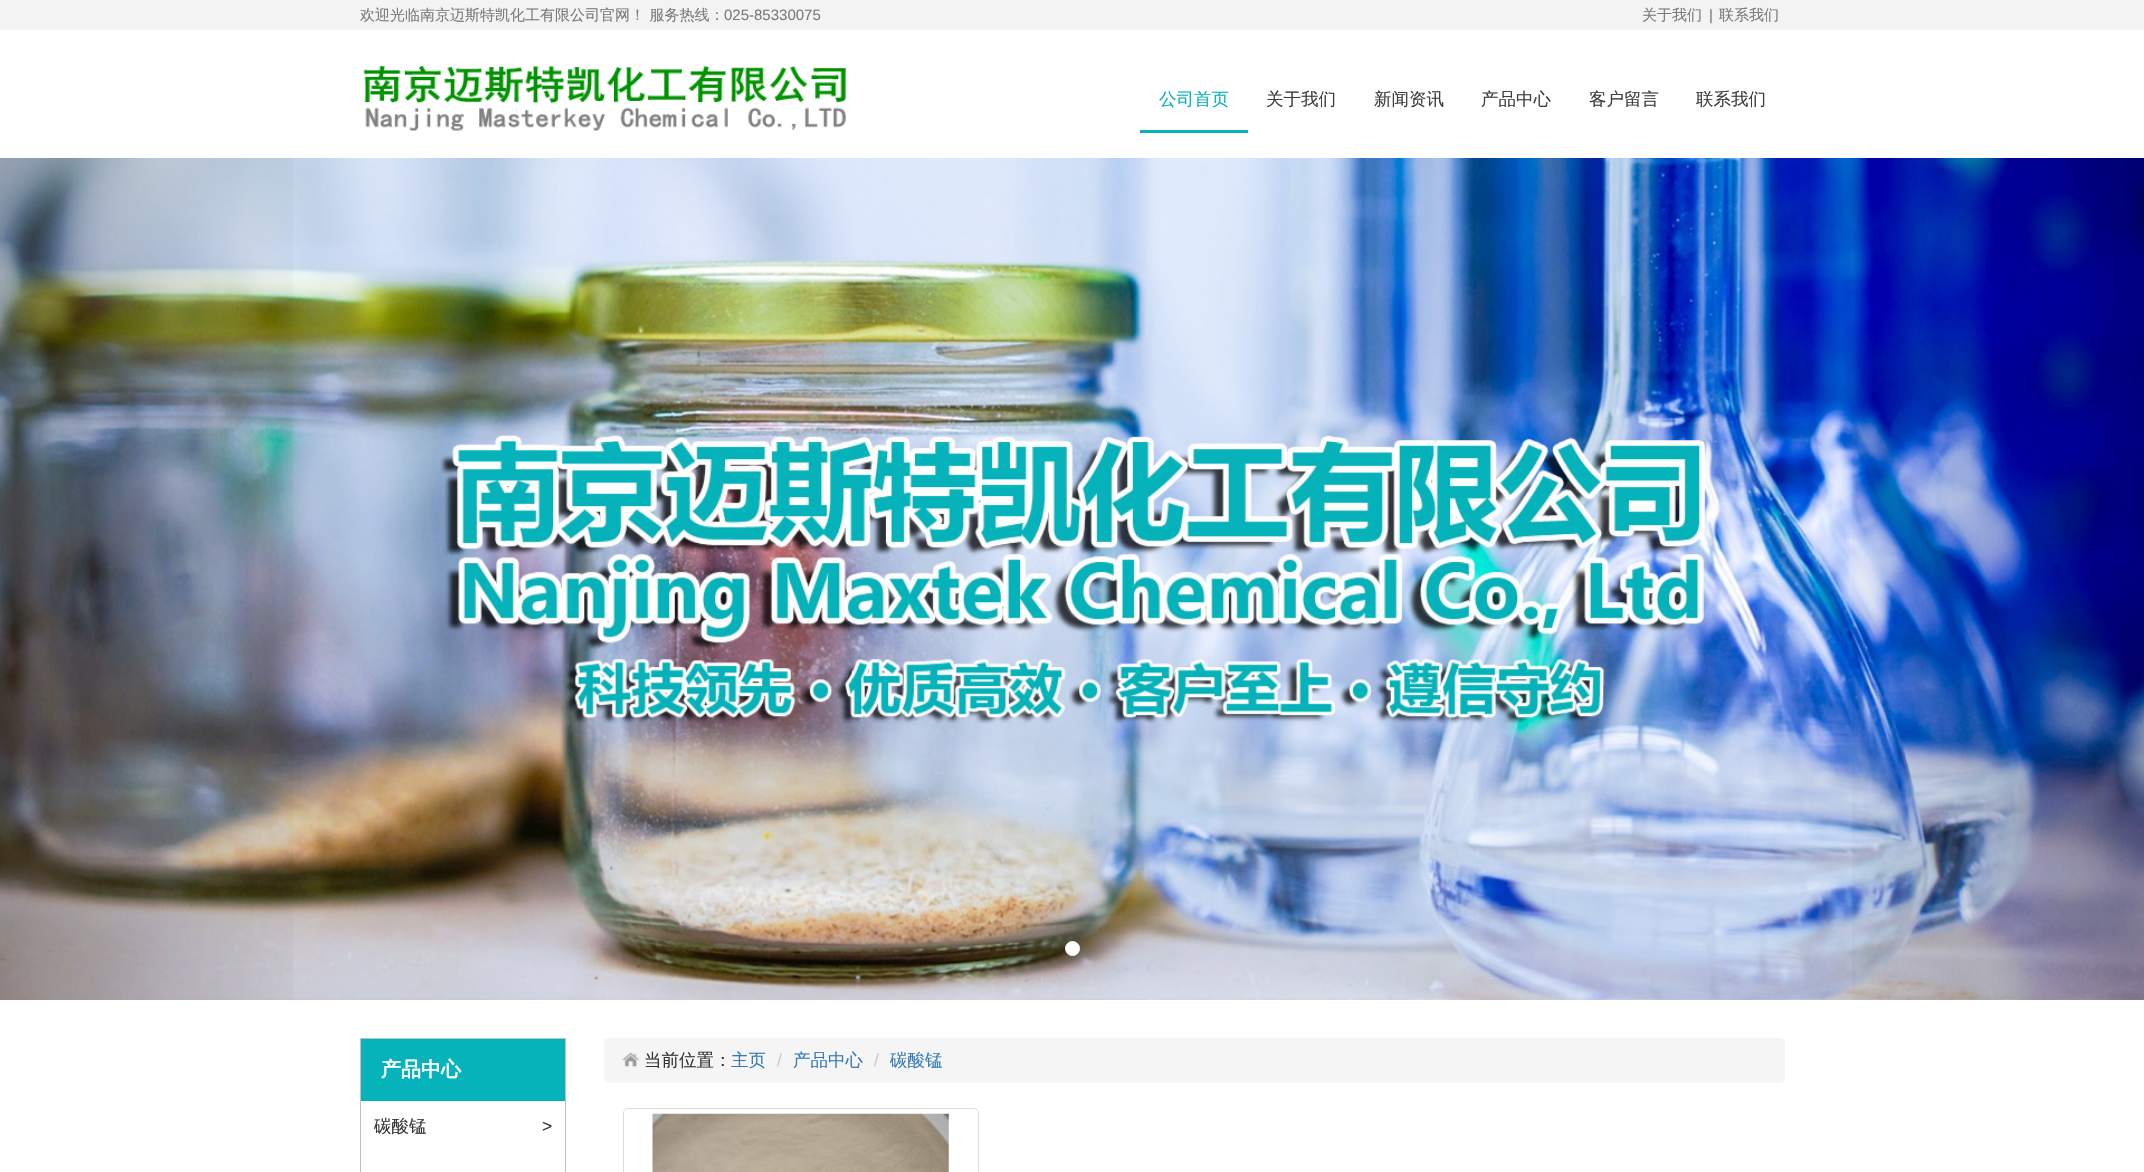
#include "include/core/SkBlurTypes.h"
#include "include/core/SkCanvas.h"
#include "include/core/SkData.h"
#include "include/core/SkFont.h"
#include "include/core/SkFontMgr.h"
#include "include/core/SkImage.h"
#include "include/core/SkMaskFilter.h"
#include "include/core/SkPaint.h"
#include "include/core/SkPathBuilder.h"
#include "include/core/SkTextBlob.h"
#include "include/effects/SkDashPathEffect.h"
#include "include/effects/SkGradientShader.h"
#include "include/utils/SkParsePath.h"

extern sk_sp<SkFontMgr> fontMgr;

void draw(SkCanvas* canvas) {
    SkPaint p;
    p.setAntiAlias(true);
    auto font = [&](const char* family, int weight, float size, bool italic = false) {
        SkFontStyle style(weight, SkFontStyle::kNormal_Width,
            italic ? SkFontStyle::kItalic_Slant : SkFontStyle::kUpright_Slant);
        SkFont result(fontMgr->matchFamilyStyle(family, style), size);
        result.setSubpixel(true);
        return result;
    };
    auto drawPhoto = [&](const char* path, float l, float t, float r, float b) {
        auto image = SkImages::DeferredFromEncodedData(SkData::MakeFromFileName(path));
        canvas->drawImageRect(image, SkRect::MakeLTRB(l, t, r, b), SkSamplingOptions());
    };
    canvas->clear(0xFFFFFFFF);
    p.setColor(0xFFF3F3F3);
    canvas->drawRect(SkRect::MakeLTRB(0, 0, 2144, 30), p);
    auto font1 = font("WenQuanYi Zen Hei", 500, 15);
    p.setColor(0xFF7B7A7A);
    canvas->drawString("欢迎光临南京迈斯特凯化工有限公司官网！ 服务热线：", 360, 20, font1, p);
    auto font2 = font("Liberation Sans", 400, 15);
    canvas->drawString("025-85330075", 724, 20, font2, p);
    canvas->drawString("关于我们", 1642, 20, font1, p);
    canvas->drawString("|", 1709, 20, font2, p);
    canvas->drawString("联系我们", 1719, 20, font1, p);
    drawPhoto("media/1.png", 363, 65, 846, 131);
    p.setColor(0xFF06B3BA);
    canvas->drawRect(SkRect::MakeLTRB(1140, 130, 1248, 133), p);
    auto font3 = font("WenQuanYi Zen Hei", 500, 17.5f);
    canvas->drawString("公司首页", 1159, 105, font3, p);
    p.setColor(0xFF3E3D3D);
    {
        const struct { const char* s; float x, y; } items[] = {
            {"关于我们", 1266, 105},
            {"新闻资讯", 1374, 105},
            {"产品中心", 1481, 105},
            {"客户留言", 1589, 105},
            {"联系我们", 1696, 105},
        };
        for (auto [s, x, y] : items) {
            canvas->drawString(s, x, y, font3, p);
        }
    }
    drawPhoto("media/2.png", 0, 158, 2144, 1000);
    {
        const SkColor colors[] = {0x40000000, 0x00000000};
        const float stops[] = {0, 1};
        const SkPoint ends[] = {{0, 579}, {321, 579}};
        p.setShader(SkGradientShader::MakeLinear(ends, colors, stops, 2, SkTileMode::kClamp));
        p.setAlpha(255);
    }
    canvas->drawRect(SkRect::MakeLTRB(0, 158, 293, 1000), p);
    p.setShader(nullptr);
    p.setColor(0xFFFFFFFF);
    canvas->drawCircle(1072.5f, 948.5f, 7, p);
    p.setStyle(SkPaint::kStroke_Style);
    p.setStrokeWidth(1);
    canvas->drawCircle(1072.5f, 948.5f, 7, p);
    p.setStyle(SkPaint::kFill_Style);
    {
        const SkColor colors[] = {0x00000000, 0x40000000};
        const float stops[] = {0, 1};
        const SkPoint ends[] = {{1824, 579}, {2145, 579}};
        p.setShader(SkGradientShader::MakeLinear(ends, colors, stops, 2, SkTileMode::kClamp));
        p.setAlpha(255);
    }
    canvas->drawRect(SkRect::MakeLTRB(1852, 158, 2144, 1000), p);
    p.setStyle(SkPaint::kStroke_Style);
    p.setShader(nullptr);
    p.setColor(0xFFBFBFBF);
    canvas->drawRect(SkRect::MakeLTRB(360.5f, 1038.5f, 565.5f, 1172.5f), p);
    p.setStyle(SkPaint::kFill_Style);
    p.setColor(0xFF06B3BA);
    canvas->drawRect(SkRect::MakeLTRB(361, 1039, 565, 1101), p);
    auto font4 = font("WenQuanYi Zen Hei", 700, 20);
    p.setColor(0xFFFFFFFF);
    canvas->drawString("产品中心", 381, 1076, font4, p);
    p.setColor(0xFF333333);
    canvas->drawString("碳酸锰", 374, 1132, font3, p);
    auto font5 = font("Liberation Sans", 400, 17.5f);
    canvas->drawString(">", 542, 1132, font5, p);
    p.setColor(0xFFF5F5F5);
    canvas->drawRoundRect(SkRect::MakeLTRB(604, 1038, 1785, 1083), 5, 5, p);
    drawPhoto("media/3.png", 622, 1052, 639, 1067);
    p.setColor(0xFF333333);
    canvas->drawString("当前位置：", 644, 1066, font3, p);
    p.setColor(0xFF337AB7);
    canvas->drawString("主页", 731, 1066, font3, p);
    p.setColor(0xFFCCCCCC);
    canvas->drawString("/", 777, 1066, font5, p);
    p.setColor(0xFF337AB7);
    canvas->drawString("产品中心", 793, 1066, font3, p);
    p.setColor(0xFFCCCCCC);
    canvas->drawString("/", 874, 1066, font5, p);
    p.setColor(0xFF337AB7);
    canvas->drawString("碳酸锰", 890, 1066, font3, p);
    p.setStyle(SkPaint::kStroke_Style);
    p.setColor(0xFFDDDDDD);
    canvas->drawRoundRect(SkRect::MakeLTRB(623.5f, 1108.5f, 978.5f, 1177.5f), 4.5f, 4.5f, p);
    drawPhoto("media/4.png", 652, 1113, 949, 1172);
}
